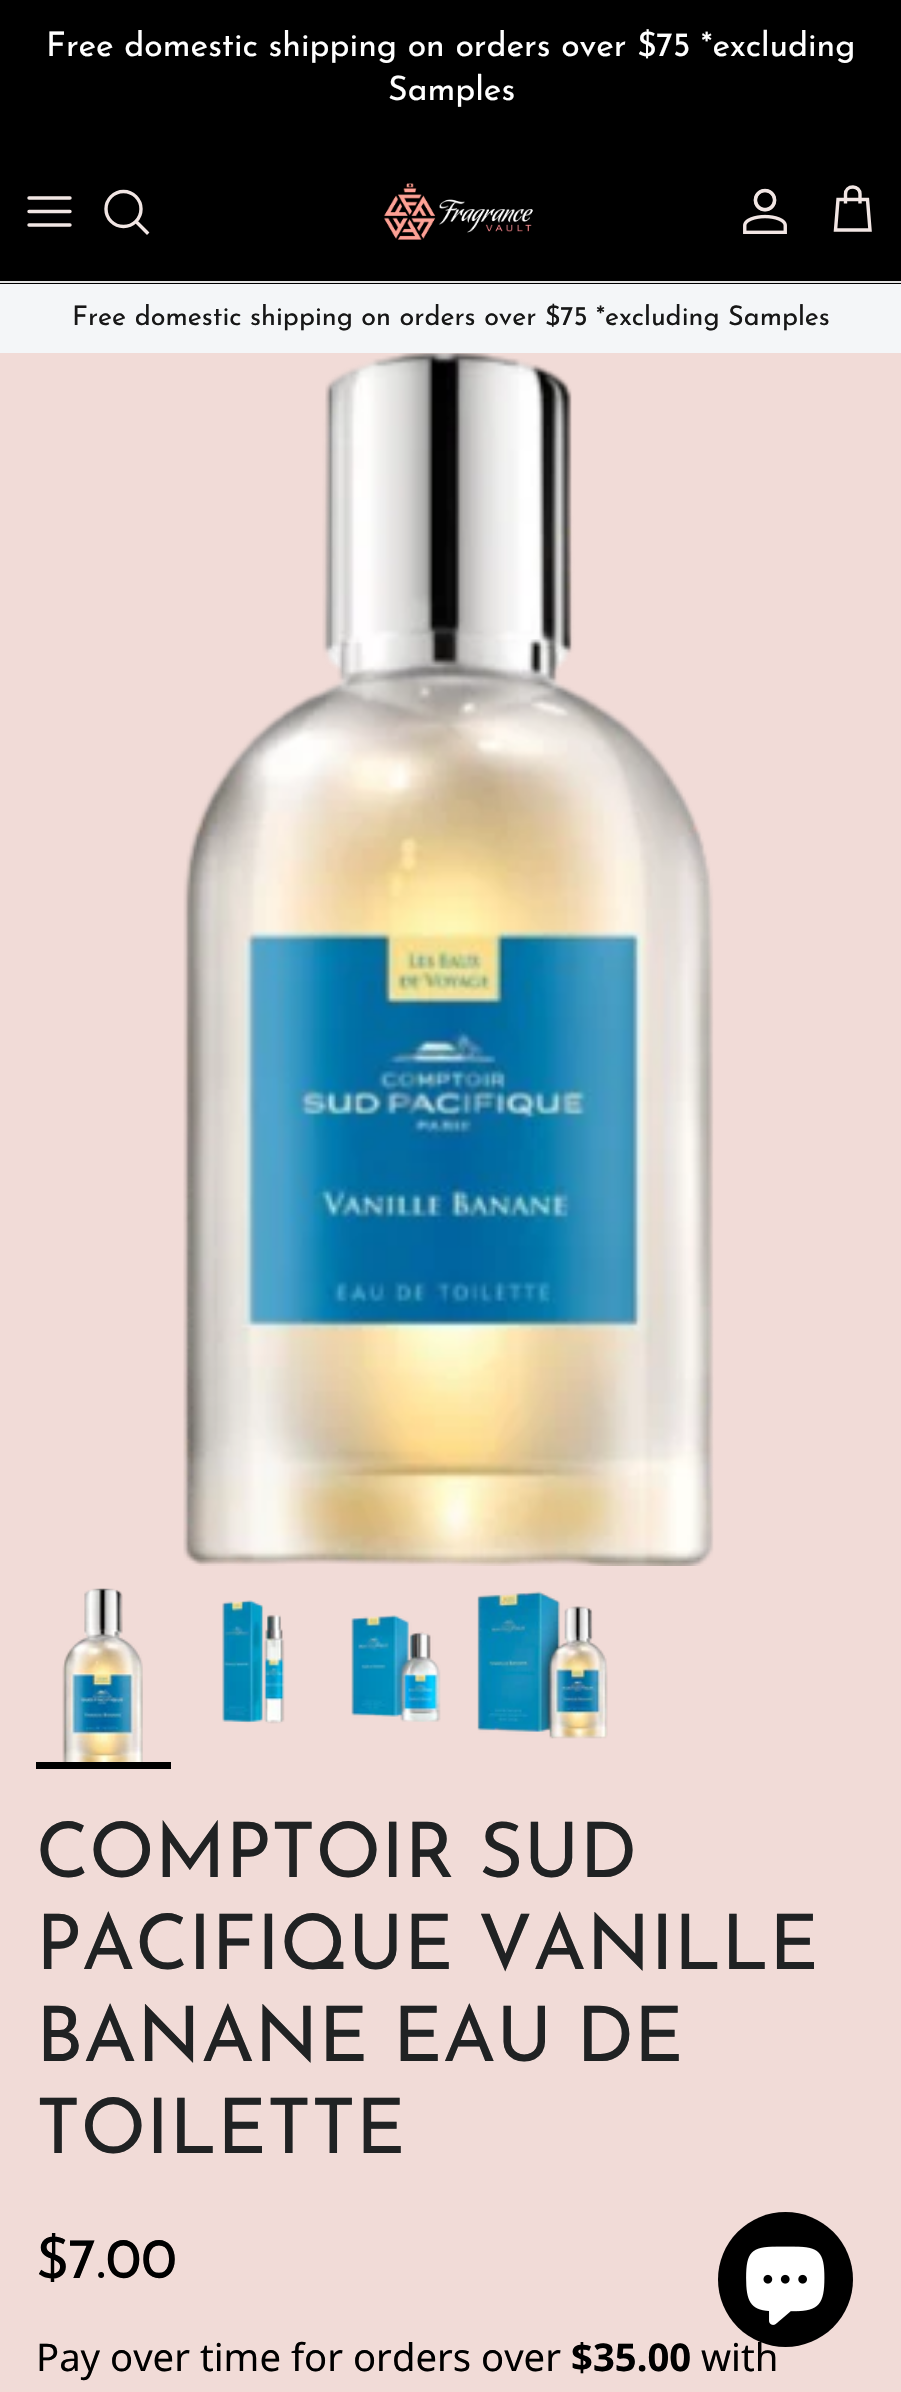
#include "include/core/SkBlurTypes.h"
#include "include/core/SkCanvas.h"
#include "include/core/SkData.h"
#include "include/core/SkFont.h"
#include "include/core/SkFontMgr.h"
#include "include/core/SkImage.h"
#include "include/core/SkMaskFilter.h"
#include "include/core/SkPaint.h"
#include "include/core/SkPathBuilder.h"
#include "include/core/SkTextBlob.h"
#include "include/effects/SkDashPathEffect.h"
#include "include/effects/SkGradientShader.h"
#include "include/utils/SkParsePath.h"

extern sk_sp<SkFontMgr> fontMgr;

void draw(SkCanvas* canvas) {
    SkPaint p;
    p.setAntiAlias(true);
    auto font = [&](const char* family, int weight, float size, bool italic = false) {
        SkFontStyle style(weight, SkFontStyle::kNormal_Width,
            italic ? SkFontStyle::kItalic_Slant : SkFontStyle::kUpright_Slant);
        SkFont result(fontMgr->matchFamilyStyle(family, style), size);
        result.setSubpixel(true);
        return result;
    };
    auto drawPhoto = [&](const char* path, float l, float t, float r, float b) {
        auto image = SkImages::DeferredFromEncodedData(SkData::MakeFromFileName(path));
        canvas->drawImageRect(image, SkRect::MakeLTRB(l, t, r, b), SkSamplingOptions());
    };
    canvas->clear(0xFFF1DBD7);
    p.setColor(0xFF000000);
    canvas->drawRect(SkRect::MakeLTRB(0, 0, 901, 284), p);
    auto font1 = font("Josefin Sans", 400, 33.75f);
    p.setColor(0xFFFFFFFF);
    canvas->drawString("Free domestic shipping on orders over $75 *excluding", 46, 56, font1, p);
    canvas->drawString("Samples", 388, 100, font1, p);
    p.setColor(0xFFE2E2E2);
    canvas->drawRect(SkRect::MakeLTRB(0, 281, 901, 283), p);
    p.setStyle(SkPaint::kStroke_Style);
    p.setStrokeWidth(3.4f);
    p.setStrokeCap(SkPaint::kRound_Cap);
    p.setStrokeJoin(SkPaint::kRound_Join);
    p.setColor(0xFFF2E6E4);
    canvas->drawPath(SkPathBuilder().moveTo(29, 211.5f).lineTo(70, 211.5f).moveTo(29, 198).lineTo(70, 198).moveTo(29, 225).lineTo(70, 225).detach(), p);
    p.setStrokeCap(SkPaint::kButt_Cap);
    p.setStrokeJoin(SkPaint::kMiter_Join);
    canvas->drawCircle(123.5f, 209, 17.5f, p);
    p.setStrokeCap(SkPaint::kSquare_Cap);
    canvas->drawPath(SkPathBuilder().moveTo(137, 222.5f).lineTo(147, 232.5f).detach(), p);
    drawPhoto("media/1.png", 383, 183, 533, 240);
    drawPhoto("media/2.png", 743, 188, 787, 234);
    p.setStrokeCap(SkPaint::kButt_Cap);
    canvas->drawPath(SkPathBuilder().moveTo(860, 203.5f).lineTo(860, 194).cubicTo(860, 190, 857, 187, 853, 187).cubicTo(848.5f, 187, 845.5f, 190, 845.5f, 194).lineTo(845.5f, 203.5f).moveTo(838, 199.5f).lineTo(867.5f, 199.5f).lineTo(870, 230).lineTo(835.5f, 230).close().detach(), p);
    p.setStyle(SkPaint::kFill_Style);
    p.setColor(0xFFF4F6F8);
    canvas->drawRect(SkRect::MakeLTRB(0, 284, 901, 353), p);
    auto font2 = font("Josefin Sans", 400, 27);
    p.setColor(0xFF171717);
    canvas->drawString("Free domestic shipping on orders over $75 *excluding Samples", 72, 325, font2, p);
    drawPhoto("media/3.png", 183, 353, 714, 1566);
    drawPhoto("media/4.png", 62, 1588, 143, 1762);
    p.setColor(0xFF000000);
    canvas->drawRect(SkRect::MakeLTRB(36, 1762, 171, 1769), p);
    drawPhoto("media/5.png", 222, 1600, 285, 1724);
    drawPhoto("media/6.png", 351, 1615, 441, 1722);
    drawPhoto("media/7.png", 477, 1591, 608, 1739);
    auto font3 = font("Josefin Sans", 400, 76.5f);
    p.setColor(0xFF202223);
    {
        const struct { const char* s; float x, y; } items[] = {
            {"COMPTOIR SUD", 36, 1877},
            {"PACIFIQUE VANILLE", 36, 1969},
            {"BANANE EAU DE", 36, 2061},
            {"TOILETTE", 36, 2153},
        };
        for (auto [s, x, y] : items) {
            canvas->drawString(s, x, y, font3, p);
        }
    }
    auto font4 = font("Josefin Sans", 400, 57);
    p.setColor(0xFF000000);
    canvas->drawString("$7.00", 36, 2278, font4, p);
    auto font5 = font("Noto Sans", 400, 38.25f);
    canvas->drawString("Pay over time for orders over", 36, 2371, font5, p);
    auto font6 = font("Noto Sans", 700, 38.25f);
    canvas->drawString("$35.00", 571, 2371, font6, p);
    canvas->drawString("with", 701, 2371, font5, p);
    canvas->drawCircle(785.5f, 2279.5f, 67.5f, p);
    drawPhoto("media/8.png", 746, 2246, 825, 2325);
}
